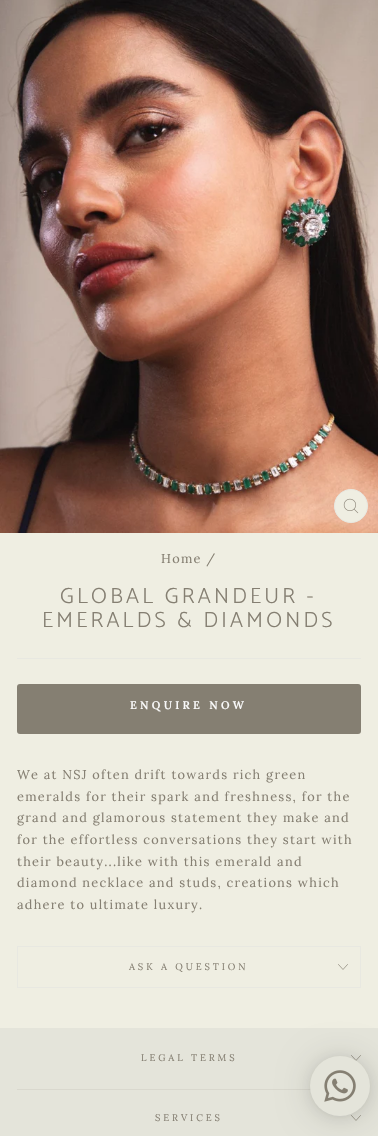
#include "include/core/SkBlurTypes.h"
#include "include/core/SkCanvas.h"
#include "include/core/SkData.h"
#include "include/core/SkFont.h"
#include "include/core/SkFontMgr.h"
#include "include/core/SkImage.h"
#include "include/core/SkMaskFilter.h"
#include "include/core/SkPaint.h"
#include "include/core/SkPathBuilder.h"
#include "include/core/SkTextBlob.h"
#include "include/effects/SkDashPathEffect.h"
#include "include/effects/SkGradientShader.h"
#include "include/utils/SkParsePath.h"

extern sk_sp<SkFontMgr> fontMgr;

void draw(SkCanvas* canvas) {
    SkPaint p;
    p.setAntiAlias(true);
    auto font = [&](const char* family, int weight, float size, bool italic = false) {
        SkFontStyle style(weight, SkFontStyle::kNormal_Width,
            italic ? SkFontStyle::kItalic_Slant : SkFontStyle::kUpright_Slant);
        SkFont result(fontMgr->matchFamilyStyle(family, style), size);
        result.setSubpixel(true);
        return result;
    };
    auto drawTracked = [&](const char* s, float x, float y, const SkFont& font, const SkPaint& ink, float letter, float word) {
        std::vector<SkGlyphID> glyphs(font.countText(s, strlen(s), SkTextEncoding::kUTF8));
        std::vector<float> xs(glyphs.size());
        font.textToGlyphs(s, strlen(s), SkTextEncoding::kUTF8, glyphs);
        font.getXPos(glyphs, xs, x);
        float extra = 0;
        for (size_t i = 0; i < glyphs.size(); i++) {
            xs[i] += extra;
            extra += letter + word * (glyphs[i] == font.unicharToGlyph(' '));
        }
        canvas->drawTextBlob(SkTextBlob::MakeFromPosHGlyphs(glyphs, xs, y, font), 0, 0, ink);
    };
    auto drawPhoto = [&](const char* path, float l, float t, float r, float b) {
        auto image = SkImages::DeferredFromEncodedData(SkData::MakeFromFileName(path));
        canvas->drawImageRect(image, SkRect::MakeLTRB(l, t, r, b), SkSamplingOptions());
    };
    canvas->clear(0xFFEFEEE2);
    drawPhoto("media/1.png", 0, 0, 378, 533);
    p.setColor(0xFFEFEEE2);
    canvas->drawCircle(351, 506, 16.5f, p);
    p.setStyle(SkPaint::kStroke_Style);
    p.setStrokeWidth(1);
    p.setColor(0xFFE8E8E1);
    canvas->drawCircle(351, 506, 16.5f, p);
    drawPhoto("media/2.png", 343, 498, 359, 514);
    auto font1 = font("Lora", 400, 12.75f);
    p.setStyle(SkPaint::kFill_Style);
    p.setColor(0xFF857F72);
    drawTracked("Home /", 161, 563, font1, p, 1.25f, 0);
    auto font2 = font("Catamaran", 300, 21.9f);
    drawTracked("GLOBAL GRANDEUR -", 60, 603, font2, p, 3.25f, 0);
    drawTracked("EMERALDS & DIAMONDS", 42, 627, font2, p, 3.25f, 0);
    p.setColor(0xFFE8E8E1);
    canvas->drawRect(SkRect::MakeLTRB(17, 658, 361, 659), p);
    p.setColor(0xFF857F72);
    canvas->drawRoundRect(SkRect::MakeLTRB(17, 684, 361, 734), 3, 3, p);
    auto font3 = font("Lora", 600, 11);
    p.setColor(0xFFFAFAFA);
    drawTracked("ENQUIRE NOW", 130, 709, font3, p, 3.25f, 0);
    p.setColor(0xFF857F72);
    {
        const struct { const char* s; float x, y; } items[] = {
            {"We at NSJ often drift towards rich green", 17, 779},
            {"emeralds for their spark and freshness, for the", 17, 801},
            {"grand and glamorous statement they make and", 17, 822},
            {"for the effortless conversations they start with", 17, 844},
            {"their beauty...like with this emerald and", 17, 866},
            {"diamond necklace and studs, creations which", 17, 887},
            {"adhere to ultimate luxury.", 17, 909},
        };
        for (auto [s, x, y] : items) {
            drawTracked(s, x, y, font1, p, 1.25f, 0);
        }
    }
    {
        const struct { float l, t, r, b; SkColor color; } items[] = {
            {17, 987, 361, 988, 0xFFE8E8E1},
            {17, 946, 361, 947, 0xFFE8E8E1},
            {360, 946, 361, 987, 0xFFE8E8E1},
            {17, 946, 18, 987, 0xFFE8E8E1},
        };
        for (auto [l, t, r, b, color] : items) {
            p.setColor(color);
            canvas->drawRect(SkRect::MakeLTRB(l, t, r, b), p);
        }
    }
    auto font4 = font("Lora", 400, 9.5f);
    p.setColor(0xFF857F72);
    drawTracked("ASK A QUESTION", 129, 970, font4, p, 2.9f, 0);
    p.setStyle(SkPaint::kStroke_Style);
    p.setStrokeWidth(0.7f);
    p.setStrokeCap(SkPaint::kRound_Cap);
    p.setStrokeJoin(SkPaint::kRound_Join);
    canvas->drawPath(SkPathBuilder().moveTo(338.5f, 964.5f).lineTo(343, 969.5f).lineTo(347.5f, 964.5f).detach(), p);
    p.setStyle(SkPaint::kFill_Style);
    p.setColor(0xFFE4E4DA);
    canvas->drawRect(SkRect::MakeLTRB(0, 1028, 378, 1136), p);
    p.setColor(0xFF857F72);
    drawTracked("LEGAL TERMS", 141, 1061, font4, p, 2.9f, 0);
    p.setStyle(SkPaint::kStroke_Style);
    canvas->drawPath(SkPathBuilder().moveTo(351.5f, 1055.5f).lineTo(356, 1060.5f).lineTo(360.5f, 1055.5f).detach(), p);
    p.setStyle(SkPaint::kFill_Style);
    p.setColor(0xFFD9D8CE);
    canvas->drawRect(SkRect::MakeLTRB(17, 1089, 311, 1090), p);
    p.setColor(0xFF857F72);
    drawTracked("SERVICES", 155, 1121, font4, p, 2.9f, 0);
    p.setStyle(SkPaint::kStroke_Style);
    canvas->drawPath(SkPathBuilder().moveTo(351.5f, 1115.5f).lineTo(356, 1120.5f).lineTo(360.5f, 1115.5f).detach(), p);
    p.setStyle(SkPaint::kFill_Style);
    p.setColor(0x29000000);
    p.setMaskFilter(SkMaskFilter::MakeBlur(kNormal_SkBlurStyle, 16));
    canvas->drawRoundRect(SkRect::MakeLTRB(310, 1058, 370, 1118), 30, 30, p);
    p.setMaskFilter(nullptr);
    p.setColor(0x0F000000);
    p.setMaskFilter(SkMaskFilter::MakeBlur(kNormal_SkBlurStyle, 3));
    canvas->drawRoundRect(SkRect::MakeLTRB(310, 1057, 370, 1117), 30, 30, p);
    p.setMaskFilter(nullptr);
    p.setColor(0xFFE4E4DA);
    canvas->drawCircle(340, 1086, 30, p);
    drawPhoto("media/3.png", 324, 1070, 356, 1102);
}
